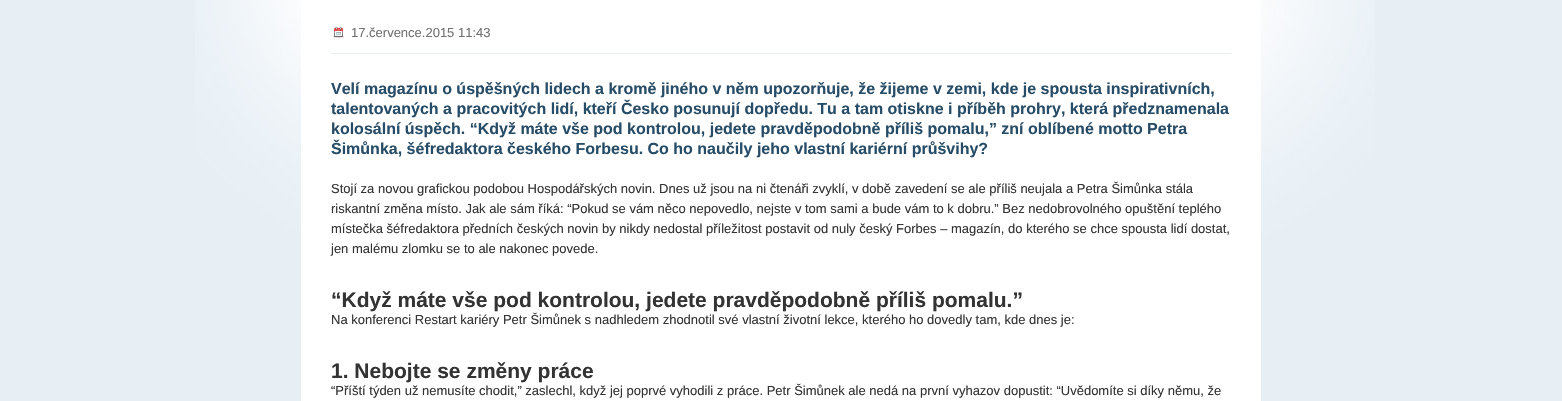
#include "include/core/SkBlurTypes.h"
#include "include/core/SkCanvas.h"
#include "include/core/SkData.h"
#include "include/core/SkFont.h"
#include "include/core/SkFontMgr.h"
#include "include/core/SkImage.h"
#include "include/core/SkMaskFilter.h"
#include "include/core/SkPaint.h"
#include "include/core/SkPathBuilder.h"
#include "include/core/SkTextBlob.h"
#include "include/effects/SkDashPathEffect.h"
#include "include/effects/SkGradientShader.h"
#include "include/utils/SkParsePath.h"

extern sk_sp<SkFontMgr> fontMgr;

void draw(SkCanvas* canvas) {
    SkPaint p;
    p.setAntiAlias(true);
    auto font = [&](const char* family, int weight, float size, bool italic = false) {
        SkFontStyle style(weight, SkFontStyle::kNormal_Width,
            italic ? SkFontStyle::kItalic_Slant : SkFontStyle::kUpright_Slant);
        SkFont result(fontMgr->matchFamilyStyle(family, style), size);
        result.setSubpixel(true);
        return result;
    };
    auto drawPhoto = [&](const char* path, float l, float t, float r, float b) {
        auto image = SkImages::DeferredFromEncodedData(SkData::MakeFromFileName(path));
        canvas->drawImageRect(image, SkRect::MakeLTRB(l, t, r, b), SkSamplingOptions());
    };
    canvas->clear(0xFFE7EFF5);
    drawPhoto("media/1.png", 195, 0, 1375, 290);
    p.setColor(0xFFFFFFFF);
    canvas->drawRect(SkRect::MakeLTRB(301, 0, 1261, 401), p);
    p.setColor(0xFFE7EFF5);
    canvas->drawRect(SkRect::MakeLTRB(331, 53, 1231, 54), p);
    drawPhoto("media/2.png", 333, 27, 344, 38);
    auto font1 = font("Liberation Sans", 400, 13);
    p.setColor(0xFF727272);
    canvas->drawString("17.července.2015 11:43", 351, 37, font1, p);
    auto font2 = font("Liberation Sans", 700, 16);
    p.setColor(0xFF274C67);
    {
        const struct { const char* s; float x, y; } items[] = {
            {"Velí magazínu o úspěšných lidech a kromě jiného v něm upozorňuje, že žijeme v zemi, kde je spousta inspirativních,", 331, 94},
            {"talentovaných a pracovitých lidí, kteří Česko posunují dopředu. Tu a tam otiskne i příběh prohry, která předznamenala", 331, 114},
            {"kolosální úspěch. “Když máte vše pod kontrolou, jedete pravděpodobně příliš pomalu,” zní oblíbené motto Petra", 331, 134},
            {"Šimůnka, šéfredaktora českého Forbesu. Co ho naučily jeho vlastní kariérní průšvihy?", 331, 154},
        };
        for (auto [s, x, y] : items) {
            canvas->drawString(s, x, y, font2, p);
        }
    }
    p.setColor(0xFF333333);
    {
        const struct { const char* s; float x, y; } items[] = {
            {"Stojí za novou grafickou podobou Hospodářských novin. Dnes už jsou na ni čtenáři zvyklí, v době zavedení se ale příliš neujala a Petra Šimůnka stála", 331, 193},
            {"riskantní změna místo. Jak ale sám říká: “Pokud se vám něco nepovedlo, nejste v tom sami a bude vám to k dobru.” Bez nedobrovolného opuštění teplého", 331, 213},
            {"místečka šéfredaktora předních českých novin by nikdy nedostal příležitost postavit od nuly český Forbes – magazín, do kterého se chce spousta lidí dostat,", 331, 233},
            {"jen malému zlomku se to ale nakonec povede.", 331, 253},
        };
        for (auto [s, x, y] : items) {
            canvas->drawString(s, x, y, font1, p);
        }
    }
    auto font3 = font("Liberation Sans", 700, 21);
    canvas->drawString("“Když máte vše pod kontrolou, jedete pravděpodobně příliš pomalu.”", 331, 307, font3, p);
    canvas->drawString("Na konferenci Restart kariéry Petr Šimůnek s nadhledem zhodnotil své vlastní životní lekce, kterého ho dovedly tam, kde dnes je:", 331, 324, font1, p);
    canvas->drawString("1. Nebojte se změny práce", 331, 378, font3, p);
    canvas->drawString("“Příští týden už nemusíte chodit,” zaslechl, když jej poprvé vyhodili z práce. Petr Šimůnek ale nedá na první vyhazov dopustit: “Uvědomíte si díky němu, že", 331, 395, font1, p);
}
